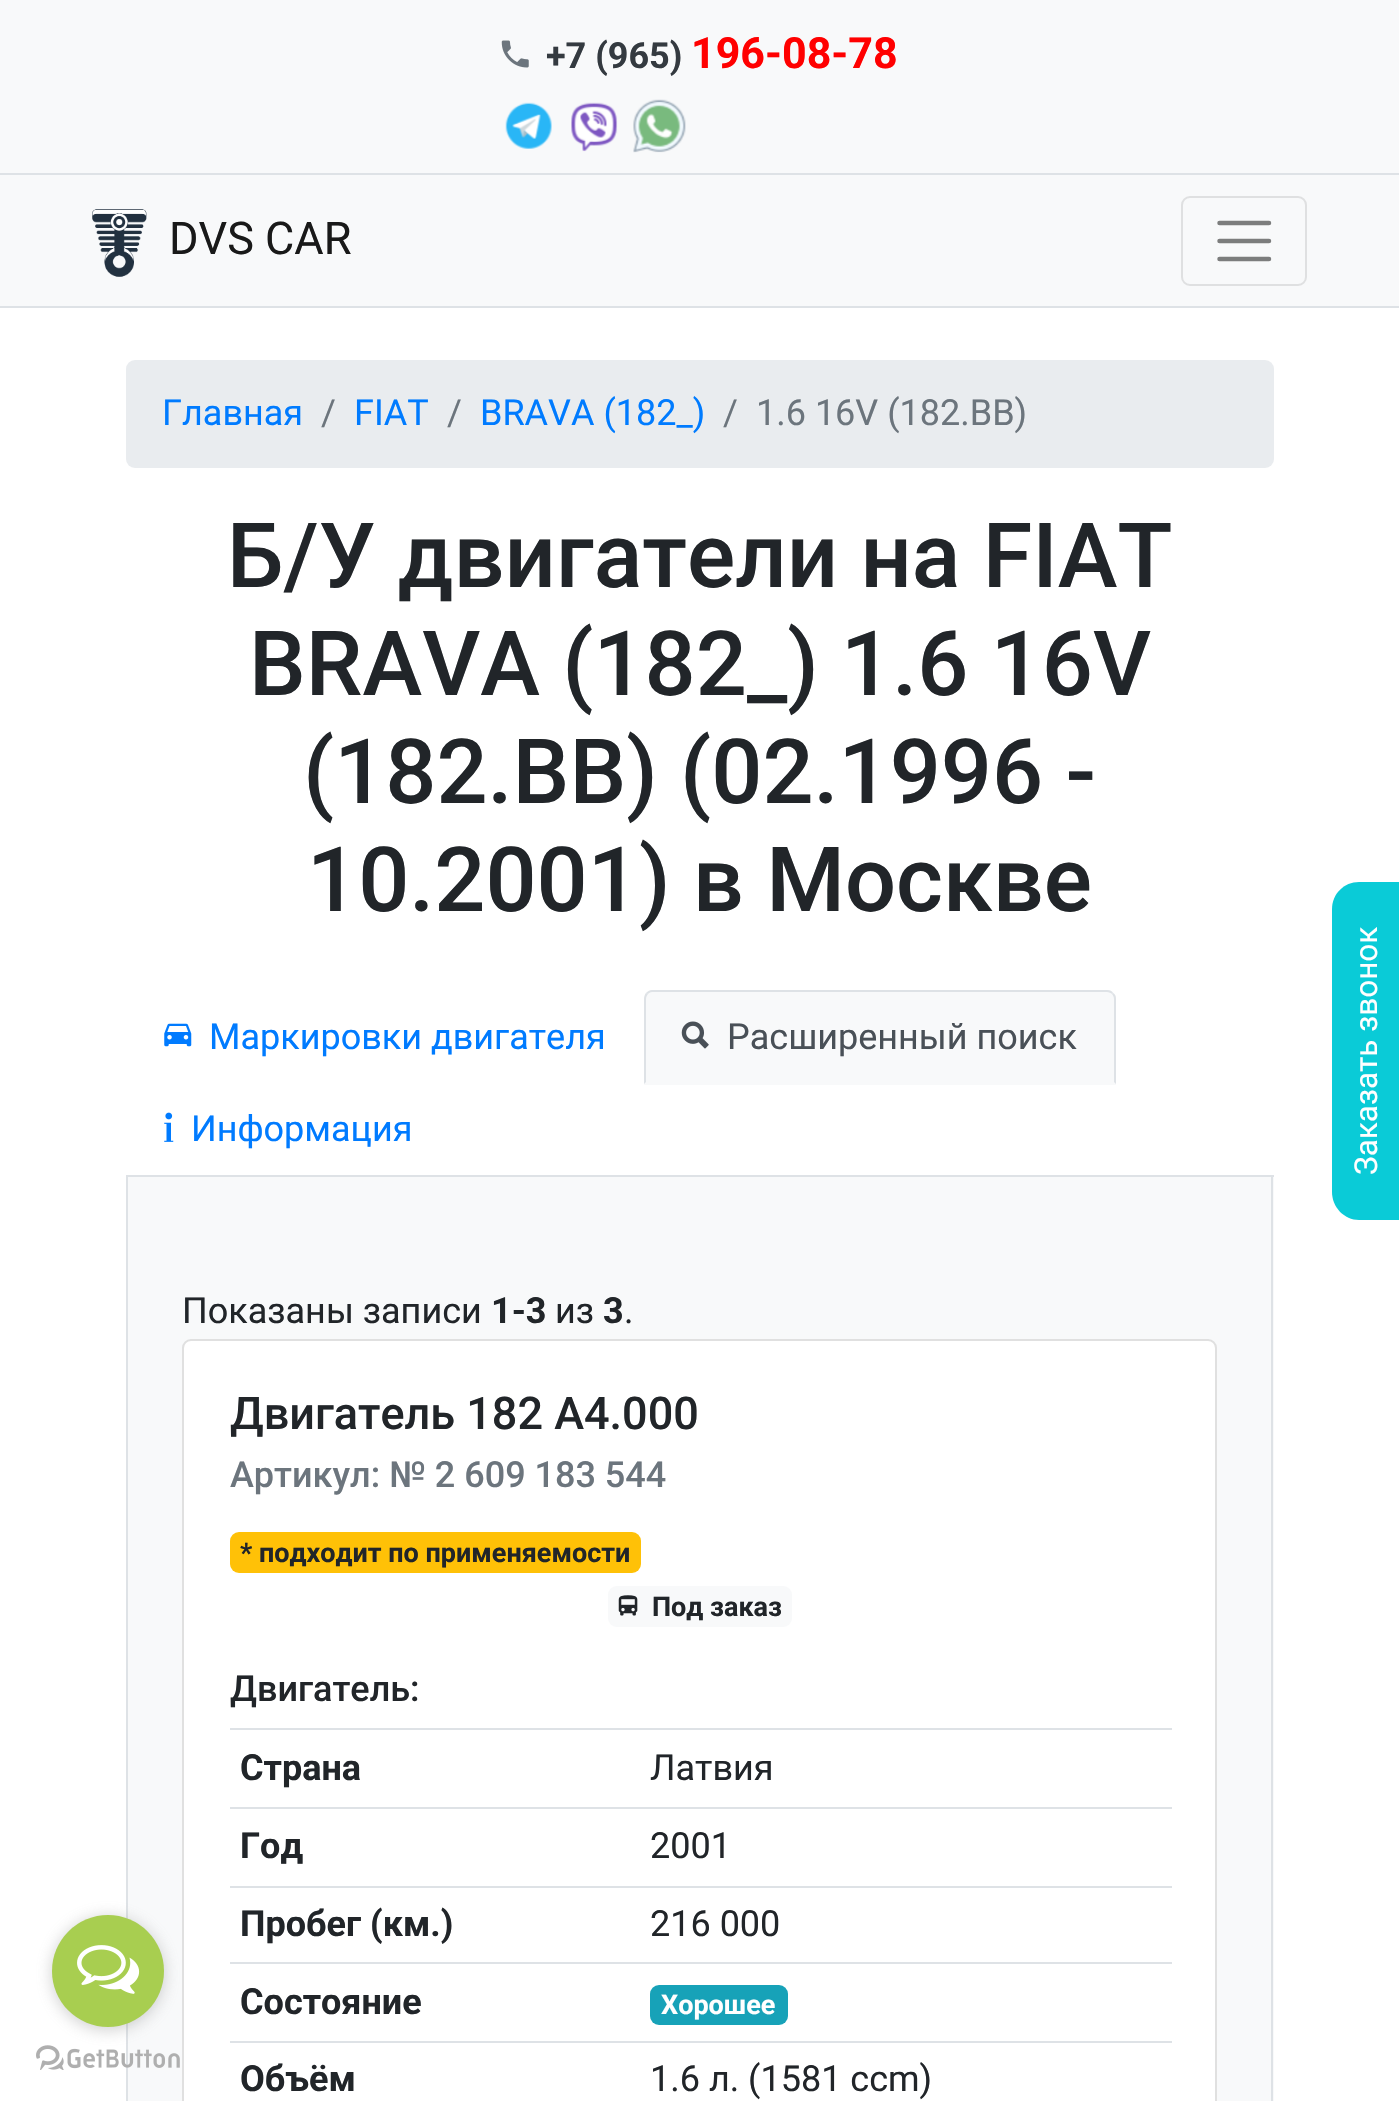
#include "include/core/SkBlurTypes.h"
#include "include/core/SkCanvas.h"
#include "include/core/SkData.h"
#include "include/core/SkFont.h"
#include "include/core/SkFontMgr.h"
#include "include/core/SkImage.h"
#include "include/core/SkMaskFilter.h"
#include "include/core/SkPaint.h"
#include "include/core/SkPathBuilder.h"
#include "include/core/SkTextBlob.h"
#include "include/effects/SkDashPathEffect.h"
#include "include/effects/SkGradientShader.h"
#include "include/utils/SkParsePath.h"

extern sk_sp<SkFontMgr> fontMgr;

void draw(SkCanvas* canvas) {
    SkPaint p;
    p.setAntiAlias(true);
    auto font = [&](const char* family, int weight, float size, bool italic = false) {
        SkFontStyle style(weight, SkFontStyle::kNormal_Width,
            italic ? SkFontStyle::kItalic_Slant : SkFontStyle::kUpright_Slant);
        SkFont result(fontMgr->matchFamilyStyle(family, style), size);
        result.setSubpixel(true);
        return result;
    };
    auto drawPhoto = [&](const char* path, float l, float t, float r, float b) {
        auto image = SkImages::DeferredFromEncodedData(SkData::MakeFromFileName(path));
        canvas->drawImageRect(image, SkRect::MakeLTRB(l, t, r, b), SkSamplingOptions());
    };
    canvas->clear(0xFFFFFFFF);
    {
        const struct { float l, t, r, b; SkColor color; } items[] = {
            {0, 306, 1399, 308, 0xFFDEE2E6},
            {0, 0, 1399, 306, 0xFFF8F9FA},
            {0, 173, 1399, 175, 0xFFDEE2E6},
        };
        for (auto [l, t, r, b, color] : items) {
            p.setColor(color);
            canvas->drawRect(SkRect::MakeLTRB(l, t, r, b), p);
        }
    }
    drawPhoto("media/1.png", 501, 40, 529, 68);
    auto font1 = font("Roboto", 700, 36);
    p.setColor(0xFF343A40);
    canvas->drawString("+7 (965)", 546, 68, font1, p);
    auto font2 = font("Roboto", 700, 43);
    p.setColor(0xFFFF0000);
    canvas->drawString("196-08-78", 691, 68, font2, p);
    drawPhoto("media/2.png", 505, 102, 552, 149);
    drawPhoto("media/3.png", 571, 102, 618, 152);
    drawPhoto("media/4.png", 633, 99, 686, 153);
    drawPhoto("media/5.png", 92, 209, 147, 277);
    auto font3 = font("Roboto", 400, 45);
    p.setColor(0xFF191919);
    canvas->drawString("DVS CAR", 169, 254, font3, p);
    p.setStyle(SkPaint::kStroke_Style);
    p.setStrokeWidth(2);
    p.setColor(0xFFDFE0E1);
    canvas->drawRoundRect(SkRect::MakeLTRB(1182, 197, 1306, 285), 8, 8, p);
    p.setStrokeWidth(4.5f);
    p.setStrokeCap(SkPaint::kRound_Cap);
    p.setColor(0xFF7C7D7D);
    canvas->drawPath(SkPathBuilder().moveTo(1219.5f, 223).lineTo(1269, 223).moveTo(1219.5f, 241).lineTo(1269, 241).moveTo(1219.5f, 259).lineTo(1269, 259).detach(), p);
    p.setStyle(SkPaint::kFill_Style);
    p.setColor(0xFFE9ECEF);
    canvas->drawRoundRect(SkRect::MakeLTRB(126, 360, 1274, 468), 9, 9, p);
    auto font4 = font("Roboto", 400, 36);
    p.setColor(0xFF007BFF);
    canvas->drawString("Главная", 162, 425, font4, p);
    p.setColor(0xFF6C757D);
    canvas->drawString("/", 321, 425, font4, p);
    p.setColor(0xFF007BFF);
    canvas->drawString("FIAT", 354, 425, font4, p);
    p.setColor(0xFF6C757D);
    canvas->drawString("/", 447, 425, font4, p);
    p.setColor(0xFF007BFF);
    canvas->drawString("BRAVA (182_)", 480, 425, font4, p);
    p.setColor(0xFF6C757D);
    canvas->drawString("/", 723, 425, font4, p);
    canvas->drawString("1.6 16V (182.BB)", 756, 425, font4, p);
    auto font5 = font("Roboto", 500, 90);
    p.setColor(0xFF212529);
    {
        const struct { const char* s; float x, y; } items[] = {
            {"Б/У двигатели на FIAT", 227, 587},
            {"BRAVA (182_) 1.6 16V", 249, 695},
            {"(182.BB) (02.1996 -", 303, 803},
            {"10.2001) в Москве", 307, 911},
        };
        for (auto [s, x, y] : items) {
            canvas->drawString(s, x, y, font5, p);
        }
    }
    p.setColor(0xFFDEE2E6);
    canvas->drawRect(SkRect::MakeLTRB(126, 1175, 1274, 1177), p);
    drawPhoto("media/6.png", 164, 1023, 192, 1047);
    p.setColor(0xFF007BFF);
    canvas->drawString("Маркировки двигателя", 209, 1049, font4, p);
    p.setColor(0xFFF8F9FA);
    canvas->drawPath(SkPathBuilder().moveTo(653, 990).lineTo(1107, 990).cubicTo(1112, 990, 1116, 994, 1116, 999).lineTo(1116, 1085).lineTo(644, 1085).lineTo(644, 999).cubicTo(644, 994, 648, 990, 653, 990).close().detach(), p);
    p.setColor(0xFFDEE2E6);
    canvas->drawPath(SkPathBuilder().moveTo(652, 990).cubicTo(650, 990, 648, 991, 646, 993).lineTo(648, 994).cubicTo(649, 993, 650, 992, 652, 992).lineTo(1107, 992).cubicTo(1109, 992, 1111, 993, 1112, 994).lineTo(1113, 993).cubicTo(1112, 991, 1110, 990, 1107, 990).close().detach(), p);
    canvas->drawPath(SkPathBuilder().moveTo(1116, 1084).lineTo(1116, 999).cubicTo(1116, 996, 1115, 994, 1113, 993).lineTo(1112, 994).cubicTo(1113, 995, 1114, 997, 1114, 999).lineTo(1114, 1082).close().detach(), p);
    canvas->drawPath(SkPathBuilder().moveTo(646, 993).cubicTo(645, 994, 644, 997, 644, 999).lineTo(644, 1084).lineTo(646, 1082).lineTo(646, 999).cubicTo(646, 997, 647, 995, 648, 994).close().detach(), p);
    drawPhoto("media/7.png", 681, 1021, 709, 1049);
    p.setColor(0xFF495057);
    canvas->drawString("Расширенный поиск", 727, 1049, font4, p);
    drawPhoto("media/8.png", 164, 1112, 174, 1142);
    p.setColor(0xFF007BFF);
    canvas->drawString("Информация", 191, 1141, font4, p);
    {
        const struct { float l, t, r, b; SkColor color; } items[] = {
            {128, 1177, 1274, 2101, 0xFFF8F9FA},
            {1271, 1177, 1273, 2101, 0xFFDEE2E6},
            {126, 1177, 128, 2101, 0xFFDEE2E6},
        };
        for (auto [l, t, r, b, color] : items) {
            p.setColor(color);
            canvas->drawRect(SkRect::MakeLTRB(l, t, r, b), p);
        }
    }
    p.setColor(0xFF212529);
    canvas->drawString("Показаны записи", 182, 1323, font4, p);
    canvas->drawString("1-3", 491, 1323, font1, p);
    canvas->drawString("из", 555, 1323, font4, p);
    canvas->drawString("3", 603, 1323, font1, p);
    canvas->drawString(".", 624, 1323, font4, p);
    p.setColor(0xFFFFFFFF);
    canvas->drawRoundRect(SkRect::MakeLTRB(182, 1339, 1217, 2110), 9, 9, p);
    p.setStyle(SkPaint::kStroke_Style);
    p.setStrokeWidth(2);
    p.setStrokeCap(SkPaint::kButt_Cap);
    p.setColor(0x1F000000);
    canvas->drawRoundRect(SkRect::MakeLTRB(183, 1340, 1216, 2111), 8, 8, p);
    auto font6 = font("Roboto", 500, 45);
    p.setStyle(SkPaint::kFill_Style);
    p.setColor(0xFF212529);
    canvas->drawString("Двигатель 182 A4.000", 230, 1429, font6, p);
    auto font7 = font("Roboto", 500, 36);
    p.setColor(0xFF6C757D);
    canvas->drawString("Артикул: № 2 609 183 544", 230, 1487, font7, p);
    p.setColor(0xFFFFC107);
    canvas->drawRoundRect(SkRect::MakeLTRB(230, 1532, 641, 1573), 9, 9, p);
    auto font8 = font("Roboto", 700, 27);
    p.setColor(0xFF212529);
    canvas->drawString("* подходит по применяемости", 240, 1562, font8, p);
    p.setColor(0xFFF8F9FA);
    canvas->drawRoundRect(SkRect::MakeLTRB(608, 1586, 792, 1627), 9, 9, p);
    drawPhoto("media/9.png", 618, 1595, 638, 1616);
    p.setColor(0xFF212529);
    canvas->drawString("Под заказ", 652, 1616, font8, p);
    canvas->drawString("Двигатель:", 230, 1701, font7, p);
    canvas->drawString("Страна", 240, 1780, font1, p);
    p.setColor(0xFFDEE2E6);
    canvas->drawRect(SkRect::MakeLTRB(230, 1728, 1172, 1730), p);
    p.setColor(0xFF212529);
    canvas->drawString("Латвия", 650, 1780, font4, p);
    canvas->drawString("Год", 240, 1858, font1, p);
    p.setColor(0xFFDEE2E6);
    canvas->drawRect(SkRect::MakeLTRB(230, 1807, 1172, 1809), p);
    p.setColor(0xFF212529);
    canvas->drawString("2001", 650, 1858, font4, p);
    canvas->drawString("Пробег (км.)", 240, 1936, font1, p);
    p.setColor(0xFFDEE2E6);
    canvas->drawRect(SkRect::MakeLTRB(230, 1886, 1172, 1888), p);
    p.setColor(0xFF212529);
    canvas->drawString("216 000", 650, 1936, font4, p);
    canvas->drawString("Состояние", 240, 2014, font1, p);
    p.setColor(0xFFDEE2E6);
    canvas->drawRect(SkRect::MakeLTRB(230, 1962, 1172, 1964), p);
    p.setColor(0xFF17A2B8);
    canvas->drawRoundRect(SkRect::MakeLTRB(650, 1985, 788, 2025), 9, 9, p);
    p.setColor(0xFFFFFFFF);
    canvas->drawString("Хорошее", 661, 2014, font8, p);
    p.setColor(0xFF212529);
    canvas->drawString("Объём", 240, 2091, font1, p);
    p.setColor(0xFFDEE2E6);
    canvas->drawRect(SkRect::MakeLTRB(230, 2041, 1172, 2043), p);
    p.setColor(0xFF212529);
    canvas->drawString("1.6 л. (1581 ccm)", 650, 2091, font4, p);
    p.setColor(0xFF0ACBD7);
    canvas->drawPath(SkPathBuilder().moveTo(1332, 1192).lineTo(1332, 909).cubicTo(1332, 894, 1344, 882, 1359, 882).lineTo(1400, 882).lineTo(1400, 1220).lineTo(1359, 1220).cubicTo(1344, 1220, 1332, 1207, 1332, 1192).close().detach(), p);
    auto font9 = font("Roboto", 400, 31.5f);
    p.setColor(0xFFFFFFFF);
    canvas->save();
    canvas->rotate(-90, 1377, 1175);
    canvas->drawString("Заказать звонок", 1377, 1175, font9, p);
    canvas->restore();
    drawPhoto("media/11.png", 36, 2045, 180, 2070);
    p.setColor(0x66888888);
    p.setMaskFilter(SkMaskFilter::MakeBlur(kNormal_SkBlurStyle, 8));
    canvas->drawRoundRect(SkRect::MakeLTRB(52, 1917, 164, 2030), 56, 56, p);
    p.setMaskFilter(nullptr);
    p.setColor(0xFFA8CE50);
    canvas->drawCircle(108, 1971, 56, p);
    drawPhoto("media/10.png", 77, 1945, 140, 1994);
}
